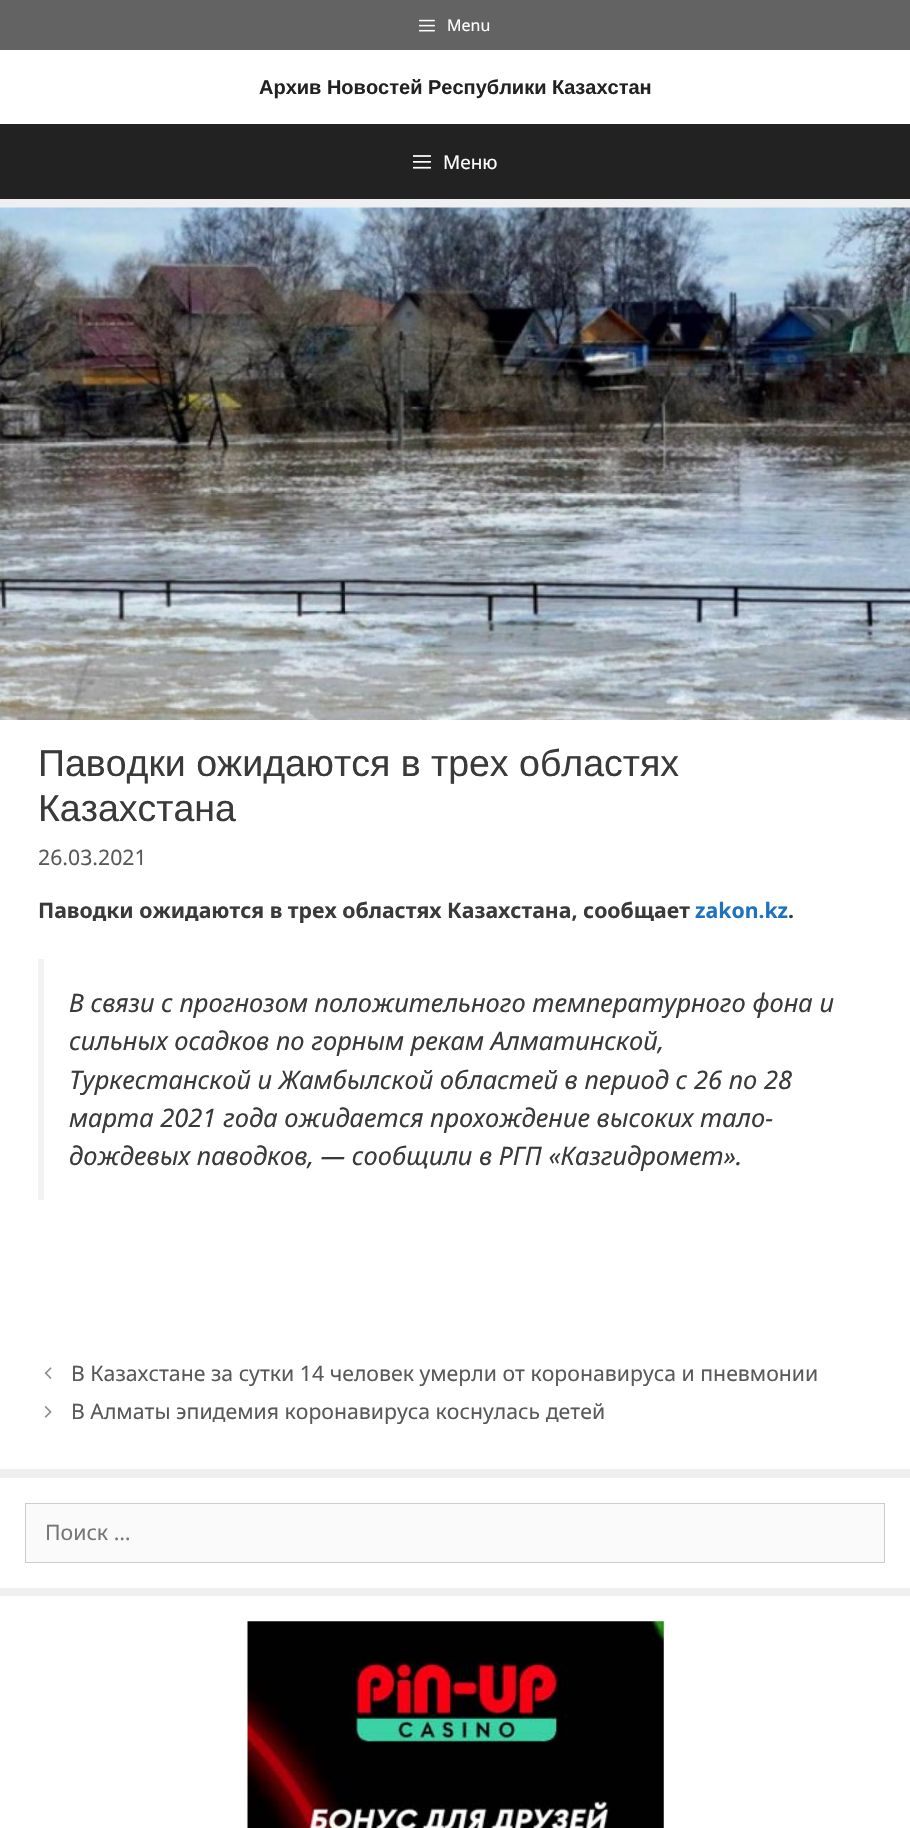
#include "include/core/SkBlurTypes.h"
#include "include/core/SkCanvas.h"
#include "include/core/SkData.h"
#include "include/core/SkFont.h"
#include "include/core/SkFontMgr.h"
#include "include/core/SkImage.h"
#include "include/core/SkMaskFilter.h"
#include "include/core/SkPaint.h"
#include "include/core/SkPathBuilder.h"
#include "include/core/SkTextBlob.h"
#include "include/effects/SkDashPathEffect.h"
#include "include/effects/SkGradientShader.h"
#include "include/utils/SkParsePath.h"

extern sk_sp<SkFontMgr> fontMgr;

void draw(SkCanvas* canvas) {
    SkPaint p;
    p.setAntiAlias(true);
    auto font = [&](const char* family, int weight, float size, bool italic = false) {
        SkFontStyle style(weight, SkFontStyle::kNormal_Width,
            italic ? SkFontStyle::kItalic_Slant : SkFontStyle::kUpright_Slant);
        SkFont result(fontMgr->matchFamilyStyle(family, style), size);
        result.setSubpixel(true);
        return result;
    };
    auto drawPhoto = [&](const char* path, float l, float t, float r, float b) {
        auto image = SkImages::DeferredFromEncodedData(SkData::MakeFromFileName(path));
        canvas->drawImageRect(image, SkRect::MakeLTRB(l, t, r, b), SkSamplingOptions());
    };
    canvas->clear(0xFFEFEFEF);
    p.setColor(0xFF636363);
    canvas->drawRect(SkRect::MakeLTRB(0, 0, 910, 50), p);
    drawPhoto("media/1.png", 419, 19, 435, 32);
    auto font1 = font("Noto Sans", 400, 16);
    p.setColor(0xFFFFFFFF);
    canvas->drawString("Menu", 447, 31, font1, p);
    canvas->drawRect(SkRect::MakeLTRB(0, 50, 910, 124), p);
    auto font2 = font("Liberation Sans", 700, 20);
    p.setColor(0xFF222222);
    canvas->drawString("Архив Новостей Республики Казахстан", 259, 94, font2, p);
    canvas->drawRect(SkRect::MakeLTRB(0, 124, 910, 199), p);
    drawPhoto("media/2.png", 413, 155, 431, 169);
    auto font3 = font("Noto Sans", 400, 19);
    p.setColor(0xFFFFFFFF);
    canvas->drawString("Меню", 443, 169, font3, p);
    canvas->drawRect(SkRect::MakeLTRB(0, 720, 910, 1469), p);
    drawPhoto("media/3.png", 0, 207, 910, 720);
    auto font4 = font("Liberation Sans", 400, 37.5f);
    p.setColor(0xFF3A3A3A);
    canvas->drawString("Паводки ожидаются в трех областях", 38, 776, font4, p);
    canvas->drawString("Казахстана", 38, 821, font4, p);
    auto font5 = font("Noto Sans", 400, 21.25f);
    p.setColor(0xFF595959);
    canvas->drawString("26.03.2021", 38, 865, font5, p);
    auto font6 = font("Noto Sans", 700, 21.25f);
    p.setColor(0xFF3A3A3A);
    canvas->drawString("Паводки ожидаются в трех областях Казахстана, сообщает", 38, 918, font6, p);
    p.setColor(0xFF1E73BE);
    canvas->drawString("zakon.kz", 695, 918, font6, p);
    p.setColor(0xFF3A3A3A);
    canvas->drawString(".", 788, 918, font6, p);
    p.setColor(0xFFF2F2F2);
    canvas->drawRect(SkRect::MakeLTRB(38, 959, 44, 1200), p);
    auto font7 = font("Noto Sans", 400, 25.5f, true);
    p.setColor(0xFF3A3A3A);
    {
        const struct { const char* s; float x, y; } items[] = {
            {"В связи с прогнозом положительного температурного фона и", 69, 1012},
            {"сильных осадков по горным рекам Алматинской,", 69, 1050},
            {"Туркестанской и Жамбылской областей в период с 26 по 28", 69, 1089},
            {"марта 2021 года ожидается прохождение высоких тало-", 69, 1127},
            {"дождевых паводков, — сообщили в РГП «Казгидромет».", 69, 1165},
        };
        for (auto [s, x, y] : items) {
            canvas->drawString(s, x, y, font7, p);
        }
    }
    drawPhoto("media/4.png", 44, 1367, 52, 1379);
    p.setColor(0xFF595959);
    canvas->drawString("В Казахстане за сутки 14 человек умерли от коронавируса и пневмонии", 71, 1381, font5, p);
    drawPhoto("media/5.png", 44, 1406, 52, 1418);
    canvas->drawString("В Алматы эпидемия коронавируса коснулась детей", 71, 1419, font5, p);
    p.setColor(0xFFFFFFFF);
    canvas->drawRect(SkRect::MakeLTRB(0, 1478, 910, 1588), p);
    p.setColor(0xFFFAFAFA);
    canvas->drawRect(SkRect::MakeLTRB(25.5f, 1503.5f, 884.5f, 1562.5f), p);
    p.setStyle(SkPaint::kStroke_Style);
    p.setStrokeWidth(1);
    p.setColor(0xFFCCCCCC);
    canvas->drawRect(SkRect::MakeLTRB(25.5f, 1503.5f, 884.5f, 1562.5f), p);
    p.setStyle(SkPaint::kFill_Style);
    p.setColor(0xFF757575);
    canvas->drawString("Поиск …", 45, 1540, font5, p);
    p.setColor(0xFFFFFFFF);
    canvas->drawRect(SkRect::MakeLTRB(0, 1596, 910, 1828), p);
    drawPhoto("media/6.png", 247, 1621, 664, 1828);
}
